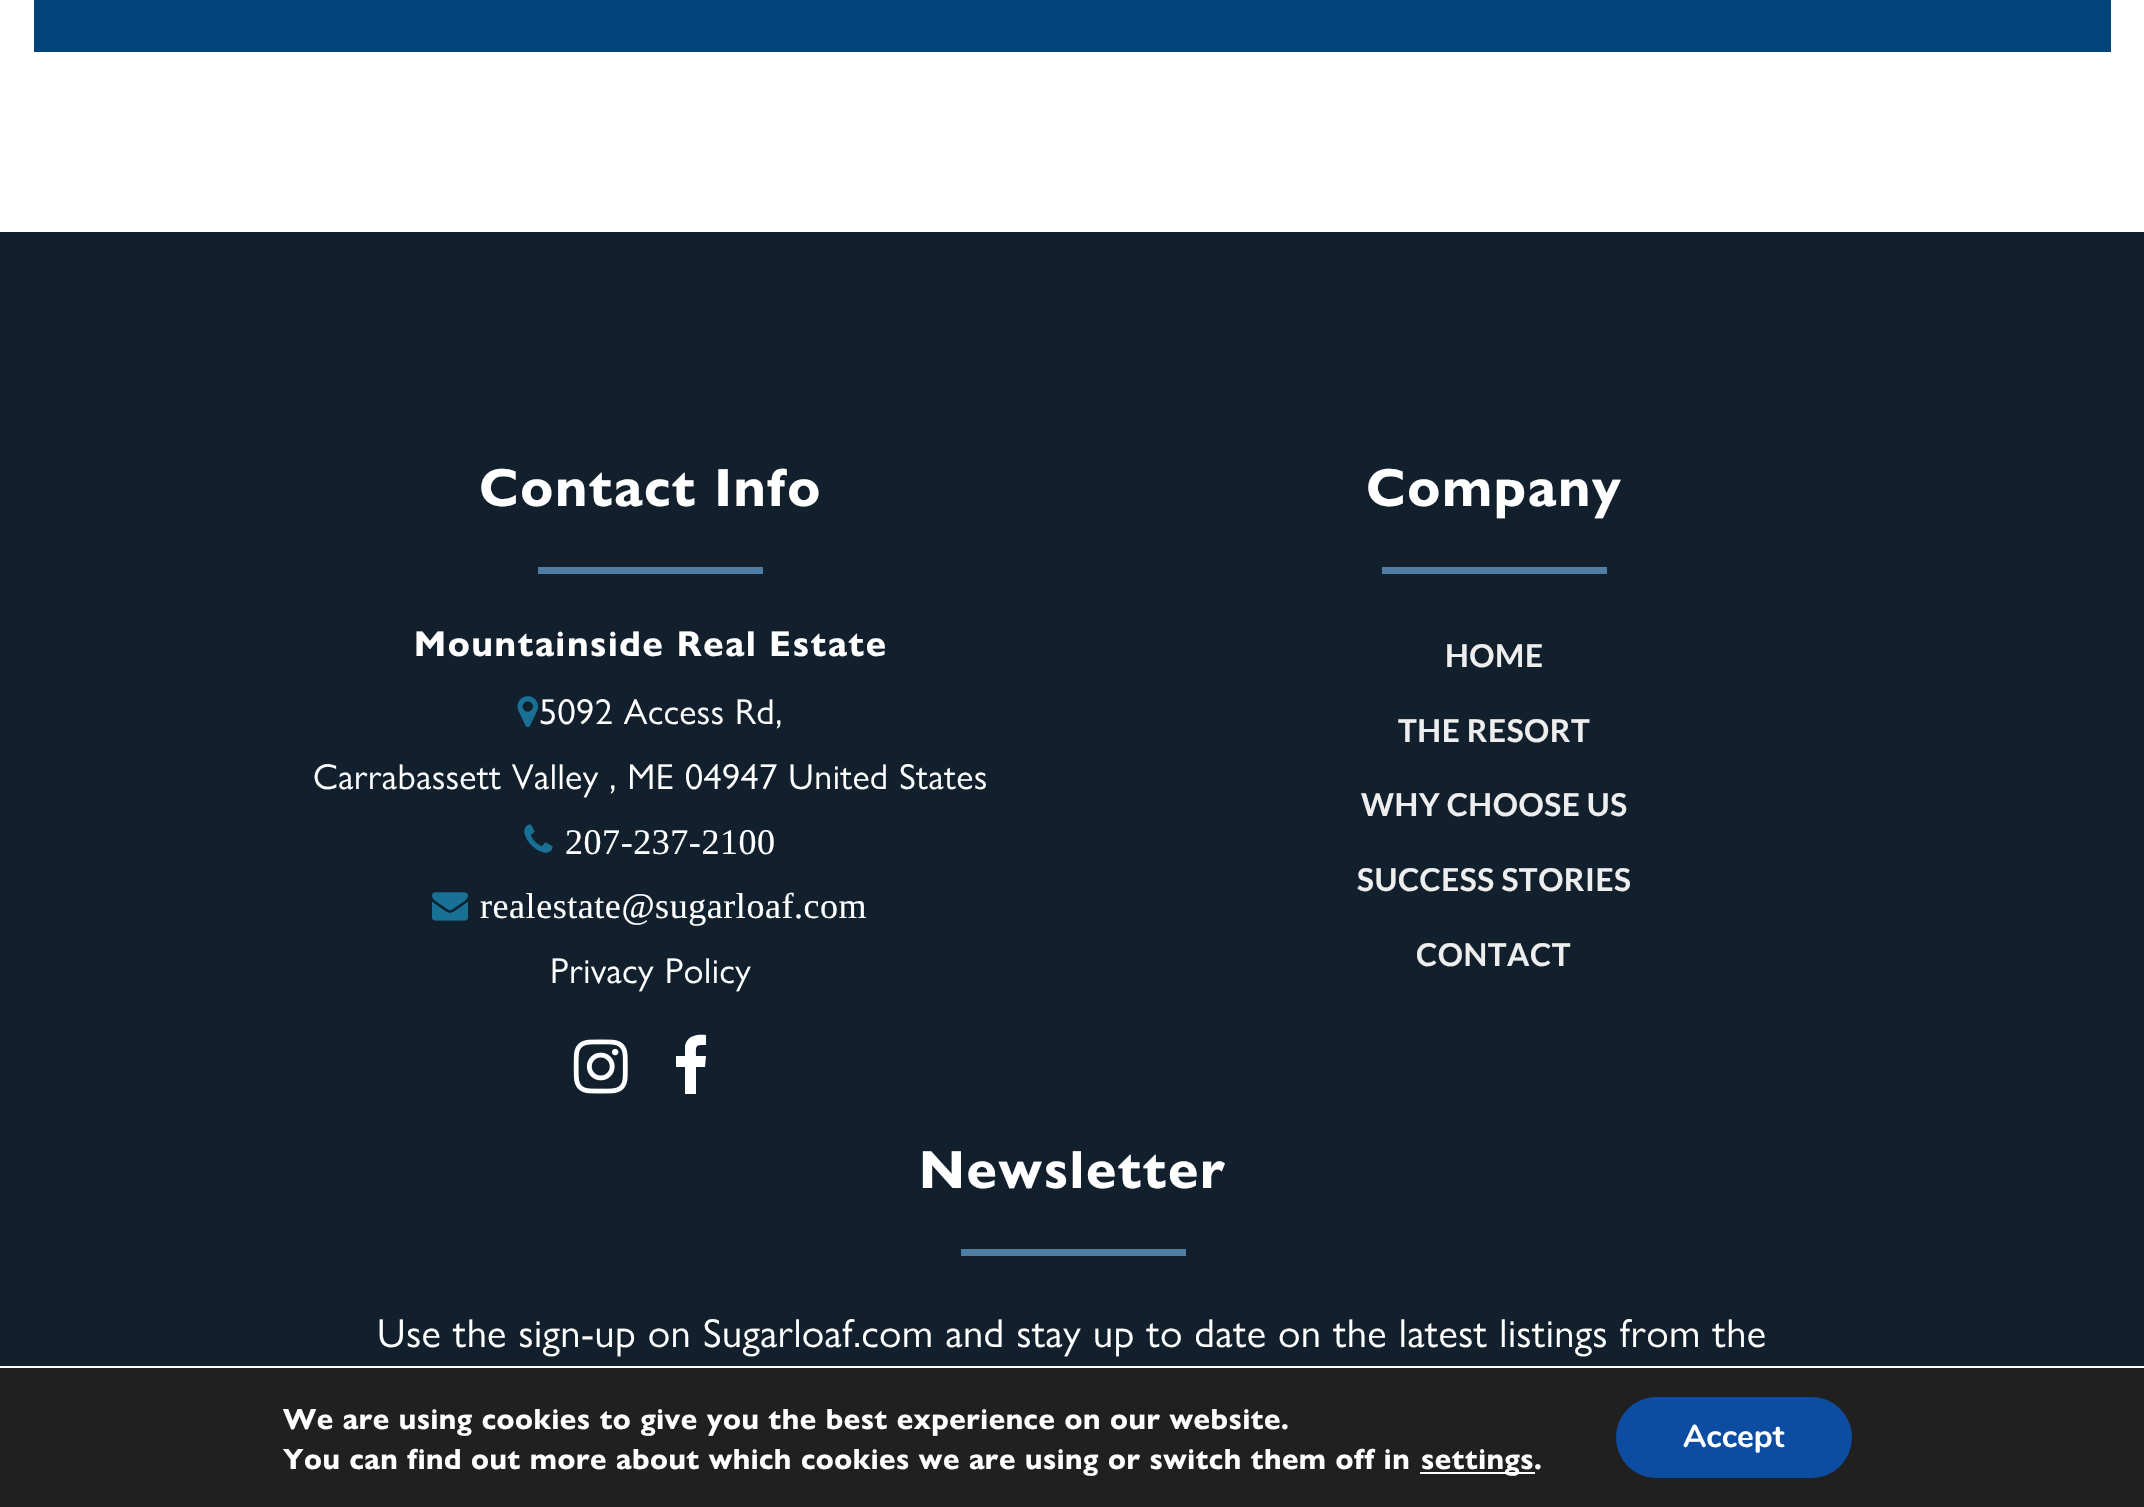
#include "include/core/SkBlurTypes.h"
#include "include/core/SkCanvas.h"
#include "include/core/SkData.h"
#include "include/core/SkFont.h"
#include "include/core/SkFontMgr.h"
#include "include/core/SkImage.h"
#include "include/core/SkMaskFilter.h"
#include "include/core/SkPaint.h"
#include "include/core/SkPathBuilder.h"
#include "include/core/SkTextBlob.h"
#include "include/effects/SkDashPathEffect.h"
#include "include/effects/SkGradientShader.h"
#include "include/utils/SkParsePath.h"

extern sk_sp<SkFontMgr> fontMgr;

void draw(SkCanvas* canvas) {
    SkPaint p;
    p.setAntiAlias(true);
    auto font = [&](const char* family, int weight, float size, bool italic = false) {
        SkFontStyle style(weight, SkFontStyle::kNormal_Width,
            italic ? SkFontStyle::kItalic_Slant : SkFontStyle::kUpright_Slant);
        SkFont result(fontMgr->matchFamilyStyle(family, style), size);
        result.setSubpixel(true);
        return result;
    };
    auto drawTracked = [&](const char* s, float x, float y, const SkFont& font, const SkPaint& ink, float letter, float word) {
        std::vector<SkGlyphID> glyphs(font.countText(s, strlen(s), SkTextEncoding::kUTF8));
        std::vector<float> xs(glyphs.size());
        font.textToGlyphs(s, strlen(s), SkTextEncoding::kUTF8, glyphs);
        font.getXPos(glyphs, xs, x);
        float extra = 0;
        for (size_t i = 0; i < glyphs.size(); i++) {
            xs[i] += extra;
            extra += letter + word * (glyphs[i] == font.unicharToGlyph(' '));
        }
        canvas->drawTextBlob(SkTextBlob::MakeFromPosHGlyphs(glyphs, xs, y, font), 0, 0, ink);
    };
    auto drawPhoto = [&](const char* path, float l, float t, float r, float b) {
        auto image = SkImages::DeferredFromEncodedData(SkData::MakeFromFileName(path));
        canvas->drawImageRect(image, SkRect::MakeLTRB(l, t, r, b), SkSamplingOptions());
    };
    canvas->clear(0xFFFFFFFF);
    p.setColor(0xFF00447B);
    canvas->drawRect(SkRect::MakeLTRB(34, 0, 2111, 52), p);
    p.setColor(0xFF11202C);
    canvas->drawRect(SkRect::MakeLTRB(0, 232, 2144, 1366), p);
    auto font1 = font("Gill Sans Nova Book", 700, 54);
    p.setColor(0xFFFFFFFF);
    drawTracked("Contact Info", 479, 506, font1, p, 1.7f, 0);
    p.setColor(0xFF4F7DA3);
    canvas->drawRect(SkRect::MakeLTRB(538, 567, 763, 574), p);
    auto font2 = font("Gill Sans Nova Book", 700, 36);
    p.setColor(0xFFFFFFFF);
    drawTracked("Mountainside Real Estate", 414, 656, font2, p, 1.7f, 0);
    drawPhoto("media/1.png", 517, 696, 539, 727);
    auto font3 = font("Gill Sans Nova Book", 400, 36);
    drawTracked("5092 Access Rd,", 539, 724, font3, p, 0.55f, 0);
    drawTracked("Carrabassett Valley , ME 04947 United States", 313, 789, font3, p, 0.55f, 0);
    drawPhoto("media/2.png", 524, 824, 553, 853);
    auto font4 = font("Liberation Serif", 400, 36);
    drawTracked("207-237-2100", 565, 854, font4, p, 0.55f, 0);
    drawPhoto("media/3.png", 432, 892, 468, 921);
    drawTracked("realestate@sugarloaf.com", 480, 918, font4, p, 0.55f, 0);
    drawTracked("Privacy Policy", 550, 983, font3, p, 0.55f, 0);
    drawPhoto("media/4.png", 573, 1039, 628, 1094);
    canvas->drawPath(SkPathBuilder().moveTo(706, 1035).lineTo(706, 1045).cubicTo(695, 1045, 696, 1045, 696, 1056).lineTo(706, 1056).lineTo(705, 1067).lineTo(696, 1067).lineTo(696, 1094).lineTo(685, 1094).lineTo(685, 1067).lineTo(676, 1067).lineTo(676, 1056).lineTo(685, 1056).lineTo(685, 1046).cubicTo(687, 1035, 698, 1034, 706, 1035).close().detach(), p);
    drawTracked("Company", 1366, 506, font1, p, 1.7f, 0);
    p.setColor(0xFF4F7DA3);
    canvas->drawRect(SkRect::MakeLTRB(1382, 567, 1607, 574), p);
    auto font5 = font("Lato", 700, 31.5f);
    p.setColor(0xFFEEEEEE);
    {
        const struct { const char* s; float x, y; } items[] = {
            {"HOME", 1445, 667},
            {"THE RESORT", 1398, 742},
            {"WHY CHOOSE US", 1361, 816},
            {"SUCCESS STORIES", 1357, 891},
            {"CONTACT", 1416, 966},
        };
        for (auto [s, x, y] : items) {
            drawTracked(s, x, y, font5, p, 0.55f, 0);
        }
    }
    p.setColor(0xFFFFFFFF);
    drawTracked("Newsletter", 919, 1188, font1, p, 1.7f, 0);
    p.setColor(0xFF4F7DA3);
    canvas->drawRect(SkRect::MakeLTRB(961, 1249, 1186, 1256), p);
    auto font6 = font("Gill Sans Nova Book", 400, 40.5f);
    p.setColor(0xFFFFFFFF);
    drawTracked("Use the sign-up on Sugarloaf.com and stay up to date on the latest listings from the", 377, 1347, font6, p, 0.55f, 0);
    p.setColor(0xFF202020);
    canvas->drawRect(SkRect::MakeLTRB(0, 1368, 2144, 1507), p);
    auto font7 = font("Gill Sans Nova Book", 700, 29.25f);
    p.setColor(0xFFFFFFFF);
    drawTracked("We are using cookies to give you the best experience on our website.", 283, 1429, font7, p, 0.55f, 0);
    drawTracked("You can find out more about which cookies we are using or switch them off in", 283, 1469, font7, p, 0.55f, 0);
    canvas->drawRect(SkRect::MakeLTRB(1420, 1472, 1535, 1474), p);
    drawTracked("settings.", 1421, 1469, font7, p, 0.55f, 0);
    p.setColor(0xFF0C4DA2);
    canvas->drawRoundRect(SkRect::MakeLTRB(1616, 1397, 1852, 1478), 40.5f, 40.5f, p);
    auto font8 = font("Nunito", 700, 31.5f);
    p.setColor(0xFFFFFFFF);
    canvas->drawString("Accept", 1683, 1447, font8, p);
}
